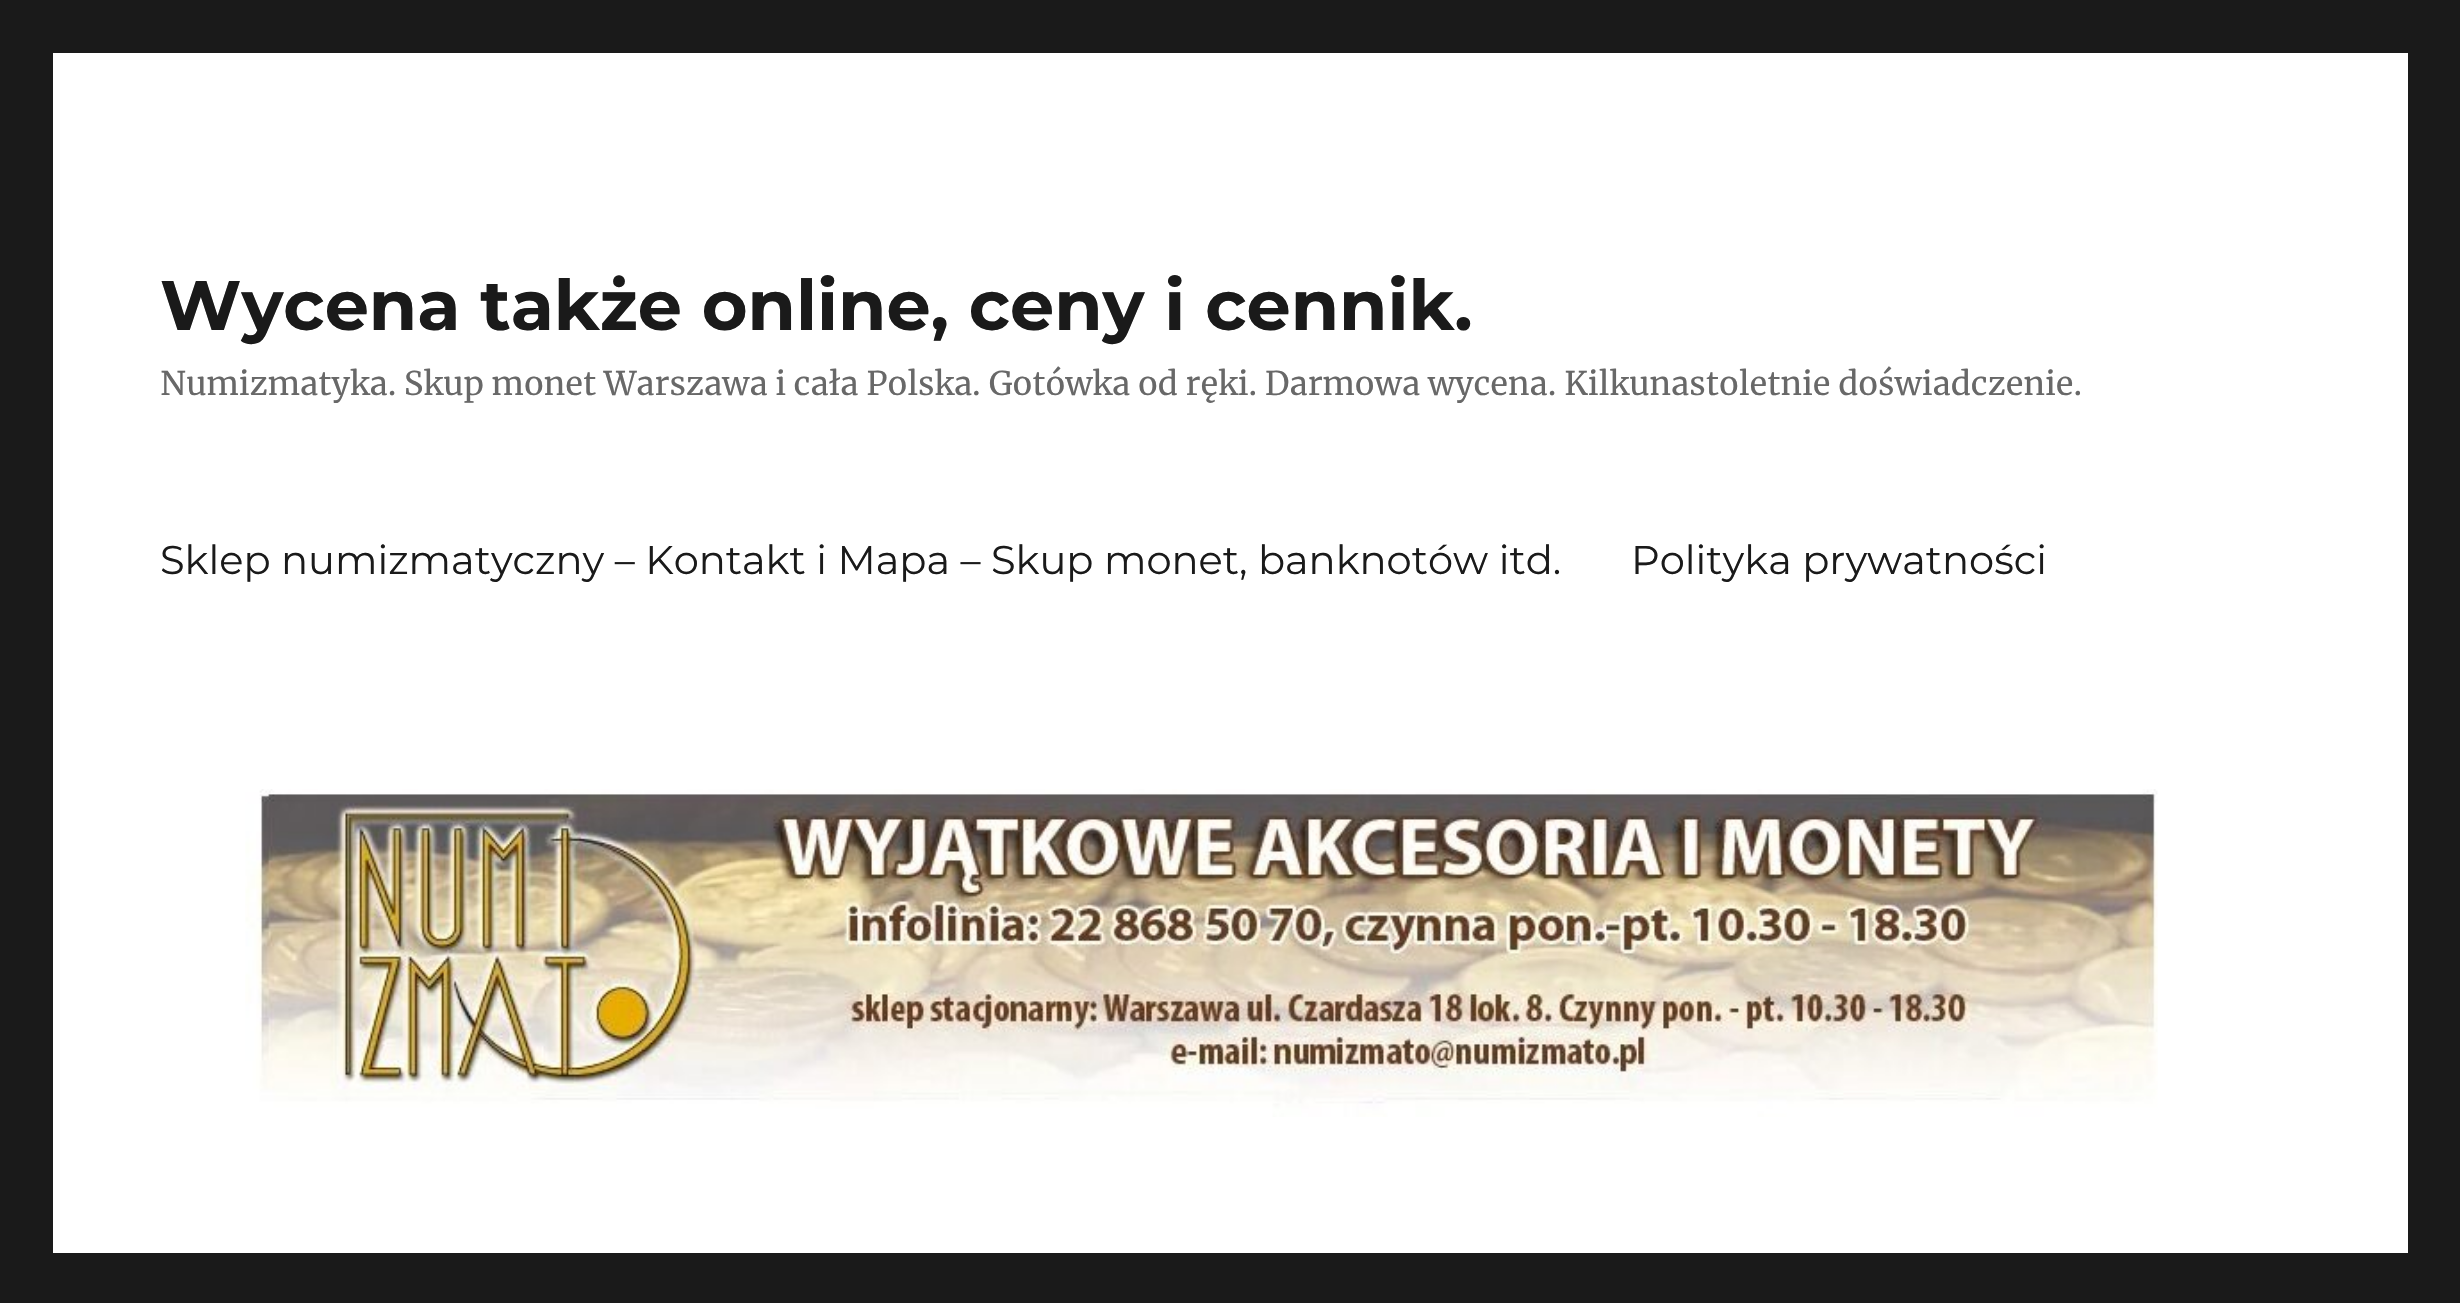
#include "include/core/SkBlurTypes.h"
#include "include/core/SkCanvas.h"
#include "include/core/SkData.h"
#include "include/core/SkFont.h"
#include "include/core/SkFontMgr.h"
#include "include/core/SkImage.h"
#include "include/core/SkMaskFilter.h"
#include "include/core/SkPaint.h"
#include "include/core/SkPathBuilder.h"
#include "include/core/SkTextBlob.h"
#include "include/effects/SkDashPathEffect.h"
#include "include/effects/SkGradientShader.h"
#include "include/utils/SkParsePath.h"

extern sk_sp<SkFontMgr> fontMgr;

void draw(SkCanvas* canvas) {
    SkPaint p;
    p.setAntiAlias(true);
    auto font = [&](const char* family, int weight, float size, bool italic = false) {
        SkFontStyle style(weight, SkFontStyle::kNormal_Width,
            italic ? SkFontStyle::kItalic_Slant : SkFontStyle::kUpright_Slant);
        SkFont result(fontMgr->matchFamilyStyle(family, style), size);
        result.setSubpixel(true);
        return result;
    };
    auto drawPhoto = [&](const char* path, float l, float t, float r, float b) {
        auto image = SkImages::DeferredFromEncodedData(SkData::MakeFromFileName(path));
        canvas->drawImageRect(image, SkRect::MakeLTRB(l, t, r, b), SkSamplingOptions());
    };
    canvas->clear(0xFF1A1A1A);
    p.setColor(0xFFFFFFFF);
    canvas->drawRect(SkRect::MakeLTRB(53, 53, 2408, 1253), p);
    auto font1 = font("Montserrat", 700, 70);
    p.setColor(0xFF1A1A1A);
    canvas->drawString("Wycena także online, ceny i cennik.", 160, 330, font1, p);
    auto font2 = font("Merriweather", 400, 32.5f);
    p.setColor(0xFF686868);
    canvas->drawString("Numizmatyka. Skup monet Warszawa i cała Polska. Gotówka od ręki. Darmowa wycena. Kilkunastoletnie doświadczenie.", 160, 395, font2, p);
    auto font3 = font("Montserrat", 400, 40);
    p.setColor(0xFF1A1A1A);
    canvas->drawString("Sklep numizmatyczny – Kontakt i Mapa – Skup monet, banknotów itd.", 160, 574, font3, p);
    canvas->drawString("Polityka prywatności", 1631, 574, font3, p);
    drawPhoto("media/1.png", 245, 789, 2158, 1117);
}
